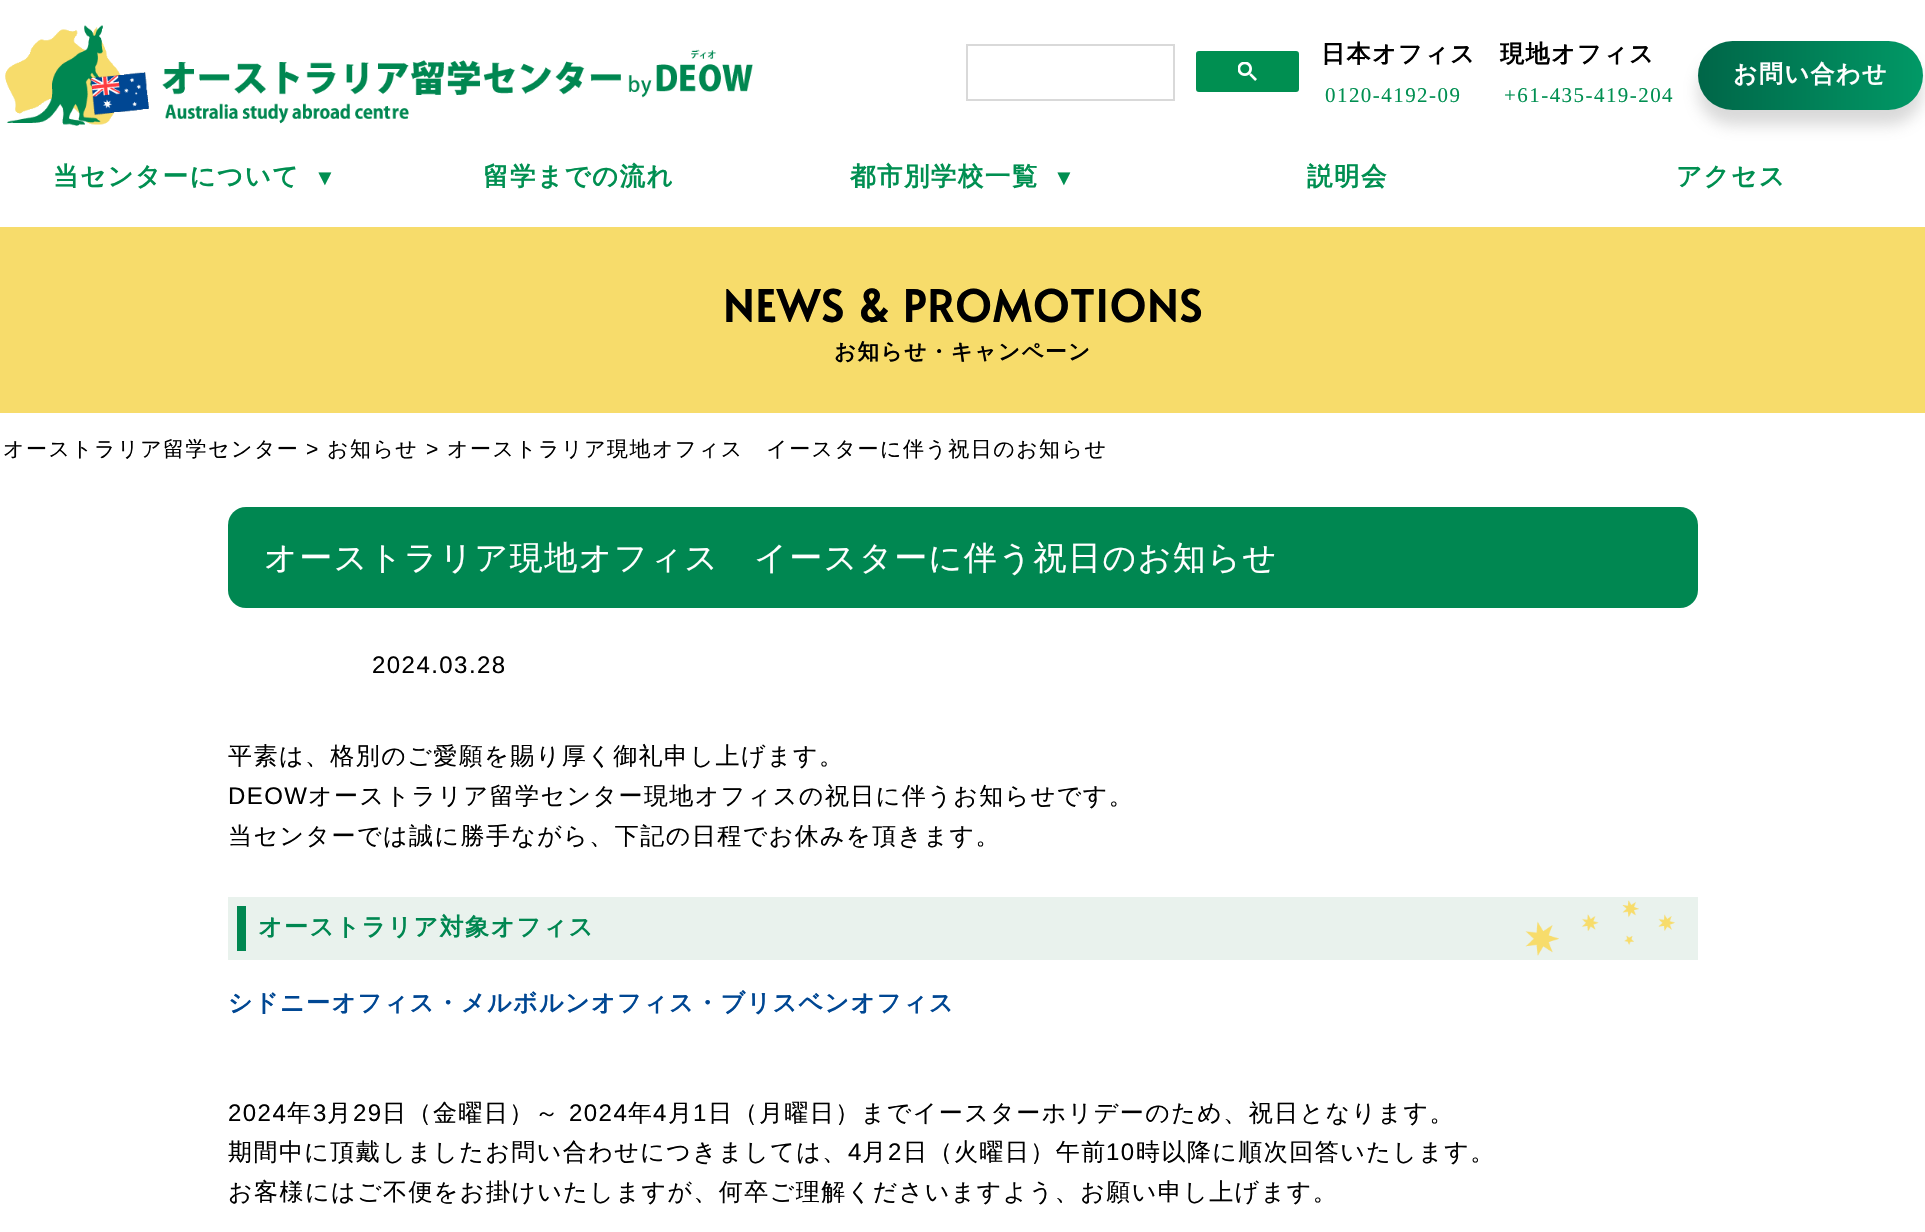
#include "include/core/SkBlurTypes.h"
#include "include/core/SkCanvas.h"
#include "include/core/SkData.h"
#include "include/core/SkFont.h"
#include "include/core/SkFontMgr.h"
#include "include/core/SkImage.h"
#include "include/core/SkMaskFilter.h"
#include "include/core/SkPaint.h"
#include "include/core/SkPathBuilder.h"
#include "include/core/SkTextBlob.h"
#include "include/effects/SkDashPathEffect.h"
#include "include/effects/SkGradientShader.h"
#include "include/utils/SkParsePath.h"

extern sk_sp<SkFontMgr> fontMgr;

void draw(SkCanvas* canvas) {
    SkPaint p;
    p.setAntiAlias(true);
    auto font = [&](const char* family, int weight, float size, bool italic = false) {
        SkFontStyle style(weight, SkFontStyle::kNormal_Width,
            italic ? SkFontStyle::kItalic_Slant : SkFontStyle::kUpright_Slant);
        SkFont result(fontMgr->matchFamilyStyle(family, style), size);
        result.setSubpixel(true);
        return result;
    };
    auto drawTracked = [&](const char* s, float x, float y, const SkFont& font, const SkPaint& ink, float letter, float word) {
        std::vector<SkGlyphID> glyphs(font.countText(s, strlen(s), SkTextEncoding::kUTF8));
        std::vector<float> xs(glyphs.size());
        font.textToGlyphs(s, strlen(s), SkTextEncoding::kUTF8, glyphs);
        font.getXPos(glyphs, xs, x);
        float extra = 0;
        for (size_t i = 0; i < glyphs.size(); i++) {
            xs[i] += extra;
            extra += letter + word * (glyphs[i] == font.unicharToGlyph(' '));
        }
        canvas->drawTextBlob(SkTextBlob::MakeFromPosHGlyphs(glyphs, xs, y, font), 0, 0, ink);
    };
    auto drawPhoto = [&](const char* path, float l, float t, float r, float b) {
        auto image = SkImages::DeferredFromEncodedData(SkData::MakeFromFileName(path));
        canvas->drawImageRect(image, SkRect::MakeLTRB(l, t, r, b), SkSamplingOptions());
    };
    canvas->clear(0xFFFFFFFF);
    drawPhoto("media/1.png", 5, 25, 753, 126);
    p.setStyle(SkPaint::kStroke_Style);
    p.setStrokeWidth(2);
    p.setColor(0xFFD9D9D9);
    canvas->drawRect(SkRect::MakeLTRB(967, 45, 1174, 100), p);
    p.setStyle(SkPaint::kFill_Style);
    p.setColor(0xFF008F51);
    canvas->drawRoundRect(SkRect::MakeLTRB(1197, 52, 1298, 91), 2, 2, p);
    p.setStyle(SkPaint::kStroke_Style);
    canvas->drawRoundRect(SkRect::MakeLTRB(1197, 52, 1298, 91), 2, 2, p);
    drawPhoto("media/2.png", 1238, 62, 1257, 81);
    auto font1 = font("WenQuanYi Zen Hei", 700, 24);
    p.setStyle(SkPaint::kFill_Style);
    p.setColor(0xFF000000);
    drawTracked("日本オフィス", 1321, 62, font1, p, 1.45f, 0);
    auto font2 = font("Liberation Serif", 400, 21);
    p.setColor(0xFF008F51);
    drawTracked("0120-4192-09", 1325, 102, font2, p, 1.45f, 0);
    p.setColor(0xFF000000);
    drawTracked("現地オフィス", 1500, 62, font1, p, 1.45f, 0);
    p.setColor(0xFF008F51);
    drawTracked("+61-435-419-204", 1504, 102, font2, p, 1.45f, 0);
    p.setColor(0x59919191);
    p.setMaskFilter(SkMaskFilter::MakeBlur(kNormal_SkBlurStyle, 7.5f));
    canvas->drawRoundRect(SkRect::MakeLTRB(1698, 56, 1923, 125), 34.5f, 34.5f, p);
    p.setMaskFilter(nullptr);
    {
        const SkColor colors[] = {0xFF006648, 0xFF019966};
        const float stops[] = {0, 1};
        const SkPoint ends[] = {{1698, 75}, {1923, 75}};
        p.setShader(SkGradientShader::MakeLinear(ends, colors, stops, 2, SkTileMode::kClamp));
        p.setAlpha(255);
    }
    canvas->drawRoundRect(SkRect::MakeLTRB(1698, 41, 1923, 110), 34.5f, 34.5f, p);
    p.setShader(nullptr);
    p.setColor(0xFFFFFFFF);
    drawTracked("お問い合わせ", 1733, 82, font1, p, 1.45f, 0);
    auto font3 = font("WenQuanYi Zen Hei", 700, 25.5f);
    p.setColor(0xFF008F51);
    drawTracked("当センターについて", 53, 185, font3, p, 1.45f, 0);
    auto font4 = font("Liberation Sans", 700, 22);
    drawTracked("▼", 314, 185, font4, p, 1.45f, 0);
    drawTracked("留学までの流れ", 483, 185, font3, p, 1.45f, 0);
    drawTracked("都市別学校一覧", 850, 185, font3, p, 1.45f, 0);
    drawTracked("▼", 1053, 185, font4, p, 1.45f, 0);
    drawTracked("説明会", 1307, 185, font3, p, 1.45f, 0);
    drawTracked("アクセス", 1676, 185, font3, p, 1.45f, 0);
    p.setColor(0xFFF7DC6B);
    canvas->drawRect(SkRect::MakeLTRB(0, 227, 1925, 413), p);
    auto font5 = font("Alata", 700, 43.25f);
    p.setColor(0xFF000000);
    drawTracked("NEWS & PROMOTIONS", 723, 322, font5, p, 1.45f, 0);
    auto font6 = font("WenQuanYi Zen Hei", 700, 21.6f);
    drawTracked("お知らせ・キャンペーン", 834, 359, font6, p, 1.45f, 0);
    auto font7 = font("WenQuanYi Zen Hei", 500, 21);
    drawTracked("オーストラリア留学センター", 3, 456, font7, p, 1.45f, 0);
    auto font8 = font("Liberation Sans", 400, 21);
    drawTracked(">", 306, 456, font8, p, 1.45f, 0);
    drawTracked("お知らせ", 327, 456, font7, p, 1.45f, 0);
    drawTracked(">", 426, 456, font8, p, 1.45f, 0);
    drawTracked("オーストラリア現地オフィス　イースターに伴う祝日のお知らせ", 447, 456, font7, p, 1.45f, 0);
    p.setColor(0xFF008751);
    canvas->drawRoundRect(SkRect::MakeLTRB(228, 507, 1698, 608), 18, 18, p);
    auto font9 = font("WenQuanYi Zen Hei", 500, 33);
    p.setColor(0xFFFFFFFF);
    drawTracked("オーストラリア現地オフィス　イースターに伴う祝日のお知らせ", 264, 569, font9, p, 1.45f, 0);
    auto font10 = font("Liberation Sans", 400, 24);
    p.setColor(0xFF000000);
    drawTracked("2024.03.28", 372, 673, font10, p, 1.45f, 0);
    auto font11 = font("WenQuanYi Zen Hei", 500, 24);
    drawTracked("平素は、格別のご愛願を賜り厚く御礼申し上げます。", 228, 764, font11, p, 1.45f, 0);
    drawTracked("DEOW", 228, 804, font10, p, 1.45f, 0);
    drawTracked("オーストラリア留学センター現地オフィスの祝日に伴うお知らせです。", 308, 804, font11, p, 1.45f, 0);
    drawTracked("当センターでは誠に勝手ながら、下記の日程でお休みを頂きます。", 228, 844, font11, p, 1.45f, 0);
    p.setColor(0xFFE9F2ED);
    canvas->drawRect(SkRect::MakeLTRB(228, 897, 1698, 960), p);
    drawPhoto("media/3.png", 1525, 900, 1675, 956);
    p.setColor(0xFF008751);
    canvas->drawRect(SkRect::MakeLTRB(237, 906, 246, 951), p);
    drawTracked("オーストラリア対象オフィス", 258, 935, font1, p, 1.45f, 0);
    p.setColor(0xFF004793);
    drawTracked("シドニーオフィス・メルボルンオフィス・ブリスベンオフィス", 228, 1011, font1, p, 1.45f, 0);
    p.setColor(0xFF000000);
    drawTracked("2024", 228, 1121, font10, p, 1.45f, 0);
    drawTracked("年", 287, 1121, font11, p, 1.45f, 0);
    drawTracked("3", 313, 1121, font10, p, 1.45f, 0);
    drawTracked("月", 327, 1121, font11, p, 1.45f, 0);
    drawTracked("29", 353, 1121, font10, p, 1.45f, 0);
    drawTracked("日（金曜日）～", 382, 1121, font11, p, 1.45f, 0);
    drawTracked("2024", 569, 1121, font10, p, 1.45f, 0);
    drawTracked("年", 628, 1121, font11, p, 1.45f, 0);
    drawTracked("4", 653, 1121, font10, p, 1.45f, 0);
    drawTracked("月", 668, 1121, font11, p, 1.45f, 0);
    drawTracked("1", 693, 1121, font10, p, 1.45f, 0);
    drawTracked("日（月曜日）までイースターホリデーのため、祝日となります。", 708, 1121, font11, p, 1.45f, 0);
    drawTracked("期間中に頂戴しましたお問い合わせにつきましては、", 228, 1160, font11, p, 1.45f, 0);
    drawTracked("4", 848, 1160, font10, p, 1.45f, 0);
    drawTracked("月", 862, 1160, font11, p, 1.45f, 0);
    drawTracked("2", 888, 1160, font10, p, 1.45f, 0);
    drawTracked("日（火曜日）午前", 903, 1160, font11, p, 1.45f, 0);
    drawTracked("10", 1106, 1160, font10, p, 1.45f, 0);
    drawTracked("時以降に順次回答いたします。", 1136, 1160, font11, p, 1.45f, 0);
    drawTracked("お客様にはご不便をお掛けいたしますが、何卒ご理解くださいますよう、お願い申し上げます。", 228, 1200, font11, p, 1.45f, 0);
}
